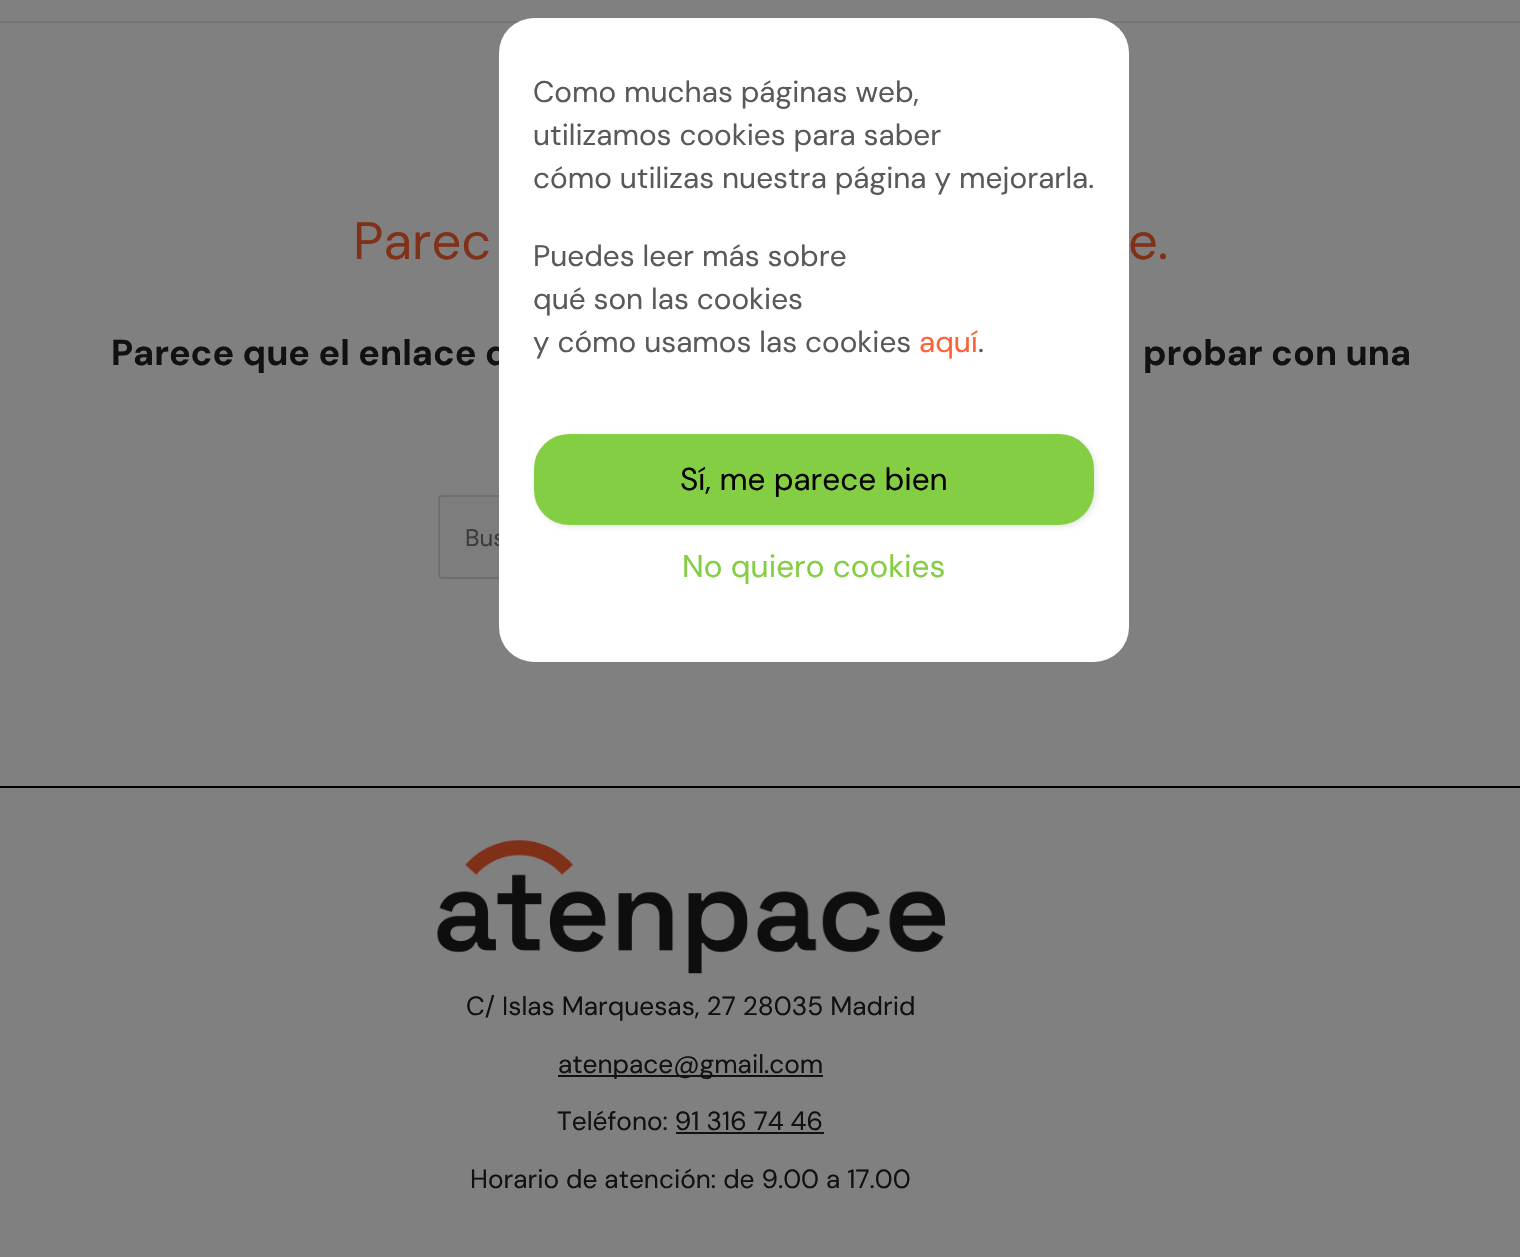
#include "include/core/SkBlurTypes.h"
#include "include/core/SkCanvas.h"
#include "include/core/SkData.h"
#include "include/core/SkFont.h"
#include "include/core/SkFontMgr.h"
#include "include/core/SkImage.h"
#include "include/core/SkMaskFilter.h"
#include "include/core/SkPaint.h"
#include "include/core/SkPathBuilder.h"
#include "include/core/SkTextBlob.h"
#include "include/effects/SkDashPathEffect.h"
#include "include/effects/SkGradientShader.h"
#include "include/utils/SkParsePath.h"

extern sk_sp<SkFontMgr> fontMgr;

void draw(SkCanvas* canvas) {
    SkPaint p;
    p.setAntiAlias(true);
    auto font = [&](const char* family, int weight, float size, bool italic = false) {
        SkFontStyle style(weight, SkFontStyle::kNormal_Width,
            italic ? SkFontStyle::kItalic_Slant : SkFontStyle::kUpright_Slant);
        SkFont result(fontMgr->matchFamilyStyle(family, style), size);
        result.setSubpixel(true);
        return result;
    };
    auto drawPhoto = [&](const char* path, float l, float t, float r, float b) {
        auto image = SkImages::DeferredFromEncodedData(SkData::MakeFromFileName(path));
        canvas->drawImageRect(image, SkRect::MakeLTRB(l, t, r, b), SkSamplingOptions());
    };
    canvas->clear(0xFF808080);
    p.setColor(0xFF757575);
    canvas->drawRect(SkRect::MakeLTRB(0, 21, 1520, 23), p);
    auto font1 = font("DM Sans", 700, 36);
    p.setColor(0xFF111111);
    canvas->drawString("Parece que el enlace q", 111, 365, font1, p);
    p.setColor(0xFF7D7D7D);
    canvas->drawRoundRect(SkRect::MakeLTRB(439, 496, 1084, 578), 3, 3, p);
    p.setStyle(SkPaint::kStroke_Style);
    p.setStrokeWidth(2);
    p.setColor(0xFF6F6F6F);
    canvas->drawRoundRect(SkRect::MakeLTRB(439, 496, 1084, 578), 3, 3, p);
    auto font2 = font("DM Sans", 400, 24);
    p.setStyle(SkPaint::kFill_Style);
    p.setColor(0xFF3B3B3B);
    canvas->drawString("Bus", 465, 546, font2, p);
    p.setColor(0xFFFFFFFF);
    canvas->drawRoundRect(SkRect::MakeLTRB(499, 18, 1129, 662), 35, 35, p);
    auto font3 = font("DM Sans", 400, 29.75f);
    p.setColor(0xFF595959);
    {
        const struct { const char* s; float x, y; } items[] = {
            {"Como muchas páginas web,", 533, 102},
            {"utilizamos cookies para saber", 533, 145},
            {"cómo utilizas nuestra página y mejorarla.", 533, 188},
            {"Puedes leer más sobre", 533, 266},
            {"qué son las cookies", 533, 309},
            {"y cómo usamos las cookies", 533, 352},
        };
        for (auto [s, x, y] : items) {
            canvas->drawString(s, x, y, font3, p);
        }
    }
    p.setColor(0xFFFF6131);
    canvas->drawString("aquí", 919, 352, font3, p);
    p.setColor(0xFF595959);
    canvas->drawString(".", 978, 352, font3, p);
    p.setColor(0x1A000000);
    p.setMaskFilter(SkMaskFilter::MakeBlur(kNormal_SkBlurStyle, 2.5f));
    canvas->drawRoundRect(SkRect::MakeLTRB(536, 436, 1096, 527), 35, 35, p);
    p.setMaskFilter(nullptr);
    p.setColor(0xFF84CE43);
    canvas->drawRoundRect(SkRect::MakeLTRB(536, 436, 1092, 523), 33, 33, p);
    p.setStyle(SkPaint::kStroke_Style);
    p.setStrokeWidth(4);
    canvas->drawRoundRect(SkRect::MakeLTRB(536, 436, 1092, 523), 33, 33, p);
    auto font4 = font("DM Sans", 400, 31.5f);
    p.setStyle(SkPaint::kFill_Style);
    p.setColor(0xFF000000);
    canvas->drawString("Sí, me parece bien", 680, 490, font4, p);
    p.setColor(0xFF84CE43);
    canvas->drawString("No quiero cookies", 682, 577, font4, p);
    auto font5 = font("DM Sans", 400, 52.5f);
    p.setColor(0xFF803119);
    canvas->drawString("Parec", 353, 259, font5, p);
    canvas->drawString("e.", 1128, 259, font5, p);
    p.setColor(0xFF111111);
    canvas->drawString("probar con una", 1143, 365, font1, p);
    p.setColor(0xFF000000);
    canvas->drawRect(SkRect::MakeLTRB(0, 786, 1520, 788), p);
    drawPhoto("media/1.png", 437, 840, 945, 974);
    auto font6 = font("DM Sans", 400, 26.25f);
    p.setColor(0xFF111111);
    canvas->drawString("C/ Islas Marquesas, 27 28035 Madrid", 466, 1015, font6, p);
    canvas->drawRect(SkRect::MakeLTRB(558, 1075, 823, 1077), p);
    canvas->drawString("atenpace@gmail.com", 558, 1073, font6, p);
    canvas->drawString("Teléfono: 91 316 74 46", 557, 1130, font6, p);
    canvas->drawRect(SkRect::MakeLTRB(676, 1132, 824, 1134), p);
    canvas->drawString("Horario de atención: de 9.00 a 17.00", 470, 1188, font6, p);
}
